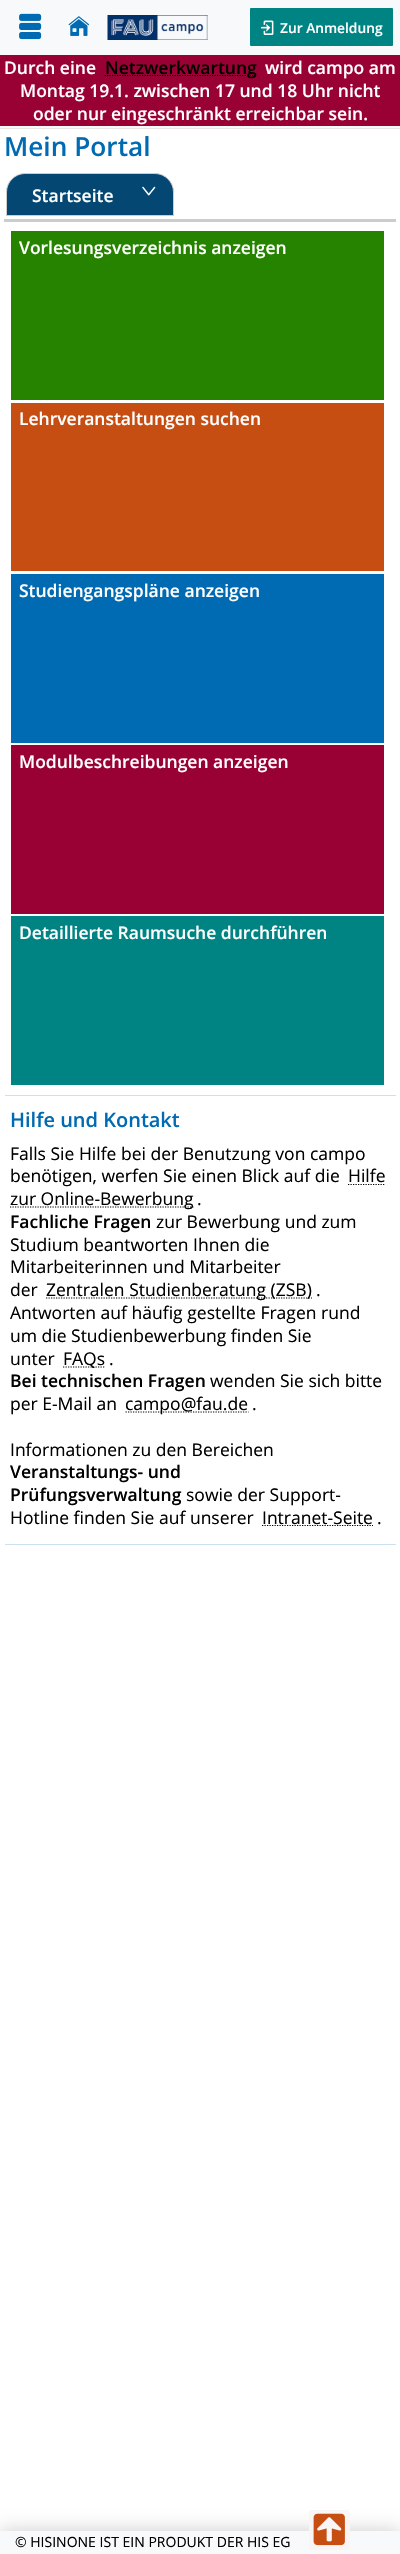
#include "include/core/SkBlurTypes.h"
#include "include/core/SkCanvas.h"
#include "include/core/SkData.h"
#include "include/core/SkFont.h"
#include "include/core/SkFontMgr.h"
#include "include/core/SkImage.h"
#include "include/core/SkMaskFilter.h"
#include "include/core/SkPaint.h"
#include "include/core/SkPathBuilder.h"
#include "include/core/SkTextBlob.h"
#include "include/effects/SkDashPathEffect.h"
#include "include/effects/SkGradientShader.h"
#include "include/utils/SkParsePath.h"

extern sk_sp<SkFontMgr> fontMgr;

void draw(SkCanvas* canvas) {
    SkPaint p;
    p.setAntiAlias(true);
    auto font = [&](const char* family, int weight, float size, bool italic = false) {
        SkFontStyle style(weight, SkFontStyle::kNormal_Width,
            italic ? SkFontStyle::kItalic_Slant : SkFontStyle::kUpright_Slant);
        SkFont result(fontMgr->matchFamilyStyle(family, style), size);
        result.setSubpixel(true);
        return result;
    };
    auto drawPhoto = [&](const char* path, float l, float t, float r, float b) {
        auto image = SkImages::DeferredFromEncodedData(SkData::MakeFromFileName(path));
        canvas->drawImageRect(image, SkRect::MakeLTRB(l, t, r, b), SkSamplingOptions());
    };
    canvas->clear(0xFFFFFFFF);
    p.setColor(0xFFF7F9FA);
    canvas->drawRect(SkRect::MakeLTRB(0, 0, 400, 128), p);
    p.setColor(0xFFEAE5E5);
    canvas->drawRect(SkRect::MakeLTRB(0, 128, 400, 129), p);
    drawPhoto("media/1.png", 19, 13, 42, 40);
    drawPhoto("media/2.png", 68, 16, 89, 36);
    drawPhoto("media/3.png", 107, 15, 208, 40);
    p.setColor(0xFF008383);
    canvas->drawRoundRect(SkRect::MakeLTRB(250, 8, 393, 46), 1, 1, p);
    drawPhoto("media/4.png", 261, 20, 274, 35);
    auto font1 = font("Open Sans", 600, 13.75f);
    p.setColor(0xFFFFFFFF);
    canvas->drawString("Zur Anmeldung", 280, 33, font1, p);
    p.setColor(0xFF990033);
    canvas->drawRect(SkRect::MakeLTRB(0, 55, 400, 126), p);
    auto font2 = font("Open Sans", 600, 17.5f);
    p.setColor(0xFFFFFFFF);
    canvas->drawString("Durch eine", 4, 74, font2, p);
    p.setStyle(SkPaint::kStroke_Style);
    p.setStrokeWidth(1.2f);
    p.setColor(0xFF000000);
    p.setPathEffect(SkDashPathEffect::Make({{1.25f, 1.25f}}, 0));
    canvas->drawPath(SkPathBuilder().moveTo(104.5f, 75.5f).lineTo(256.5f, 75.5f).detach(), p);
    p.setPathEffect(nullptr);
    p.setStyle(SkPaint::kFill_Style);
    canvas->drawString("Netzwerkwartung", 105, 74, font2, p);
    p.setColor(0xFFFFFFFF);
    {
        const struct { const char* s; float x, y; } items[] = {
            {"wird campo am", 265, 74},
            {"Montag 19.1. zwischen 17 und 18 Uhr nicht", 20, 97},
            {"oder nur eingeschränkt erreichbar sein.", 33, 120},
        };
        for (auto [s, x, y] : items) {
            canvas->drawString(s, x, y, font2, p);
        }
    }
    auto font3 = font("Open Sans", 600, 26.25f);
    p.setColor(0xFF006AB2);
    canvas->drawString("Mein Portal", 4, 156, font3, p);
    p.setColor(0xFFCCCCCC);
    canvas->drawRect(SkRect::MakeLTRB(4, 219, 396, 222), p);
    p.setColor(0xFF034772);
    canvas->drawPath(SkPathBuilder().moveTo(25, 173.5f).lineTo(155, 173.5f).cubicTo(165, 173.5f, 173.5f, 182, 173.5f, 192).lineTo(173.5f, 215.5f).lineTo(6.5f, 215.5f).lineTo(6.5f, 192).cubicTo(6.5f, 182, 15, 173.5f, 25, 173.5f).close().detach(), p);
    p.setStyle(SkPaint::kStroke_Style);
    p.setStrokeWidth(1);
    p.setColor(0xFFCCCCCC);
    canvas->drawPath(SkPathBuilder().moveTo(25, 173.5f).lineTo(155, 173.5f).cubicTo(165, 173.5f, 173.5f, 182, 173.5f, 192).lineTo(173.5f, 215.5f).lineTo(6.5f, 215.5f).lineTo(6.5f, 192).cubicTo(6.5f, 182, 15, 173.5f, 25, 173.5f).close().detach(), p);
    p.setStyle(SkPaint::kFill_Style);
    p.setColor(0xFFFFFFFF);
    canvas->drawString("Startseite", 32, 202, font2, p);
    drawPhoto("media/5.png", 142, 186, 156, 196);
    p.setColor(0xFFCCE1EF);
    canvas->drawRect(SkRect::MakeLTRB(5, 1095, 396, 1096), p);
    p.setColor(0xFF268300);
    canvas->drawRect(SkRect::MakeLTRB(11, 231, 384, 400), p);
    p.setColor(0xFFFFFFFF);
    canvas->drawString("Vorlesungsverzeichnis anzeigen", 19, 254, font2, p);
    p.setColor(0xFFC64E13);
    canvas->drawRect(SkRect::MakeLTRB(11, 403, 384, 571), p);
    p.setColor(0xFFFFFFFF);
    canvas->drawString("Lehrveranstaltungen suchen", 19, 425, font2, p);
    p.setColor(0xFF006AB2);
    canvas->drawRect(SkRect::MakeLTRB(11, 574, 384, 743), p);
    p.setColor(0xFFFFFFFF);
    canvas->drawString("Studiengangspläne anzeigen", 19, 597, font2, p);
    p.setColor(0xFF990033);
    canvas->drawRect(SkRect::MakeLTRB(11, 745, 384, 914), p);
    p.setColor(0xFFFFFFFF);
    canvas->drawString("Modulbeschreibungen anzeigen", 19, 768, font2, p);
    p.setColor(0xFF008383);
    canvas->drawRect(SkRect::MakeLTRB(11, 916, 384, 1085), p);
    p.setColor(0xFFFFFFFF);
    canvas->drawString("Detaillierte Raumsuche durchführen", 19, 939, font2, p);
    p.setColor(0xFFCCE1EF);
    canvas->drawRect(SkRect::MakeLTRB(5, 1544, 396, 1545), p);
    auto font4 = font("Open Sans", 600, 20);
    p.setColor(0xFF006AB2);
    canvas->drawString("Hilfe und Kontakt", 10, 1127, font4, p);
    auto font5 = font("Open Sans", 400, 17.5f);
    p.setColor(0xFF000000);
    {
        const struct { const char* s; float x, y; } items[] = {
            {"Falls Sie Hilfe bei der Benutzung von campo", 10, 1160},
            {"benötigen, werfen Sie einen Blick auf die", 10, 1182},
            {"Hilfe", 348, 1182},
        };
        for (auto [s, x, y] : items) {
            canvas->drawString(s, x, y, font5, p);
        }
    }
    p.setStyle(SkPaint::kStroke_Style);
    p.setStrokeWidth(1.2f);
    p.setPathEffect(SkDashPathEffect::Make({{1.25f, 1.25f}}, 0));
    canvas->drawPath(SkPathBuilder().moveTo(348, 1184.5f).lineTo(385.5f, 1184.5f).detach(), p);
    p.setPathEffect(nullptr);
    p.setPathEffect(SkDashPathEffect::Make({{1.25f, 1.25f}}, 0));
    canvas->drawPath(SkPathBuilder().moveTo(10, 1207).lineTo(193.5f, 1207).detach(), p);
    p.setPathEffect(nullptr);
    p.setStyle(SkPaint::kFill_Style);
    canvas->drawString("zur Online-Bewerbung", 10, 1205, font5, p);
    canvas->drawString(".", 197, 1205, font5, p);
    canvas->drawString("Fachliche Fragen", 10, 1228, font2, p);
    {
        const struct { const char* s; float x, y; } items[] = {
            {"zur Bewerbung und zum", 156, 1228},
            {"Studium beantworten Ihnen die", 10, 1251},
            {"Mitarbeiterinnen und Mitarbeiter", 10, 1273},
            {"der", 10, 1296},
        };
        for (auto [s, x, y] : items) {
            canvas->drawString(s, x, y, font5, p);
        }
    }
    p.setStyle(SkPaint::kStroke_Style);
    p.setPathEffect(SkDashPathEffect::Make({{1.25f, 1.25f}}, 0));
    canvas->drawPath(SkPathBuilder().moveTo(46, 1298).lineTo(312, 1298).detach(), p);
    p.setPathEffect(nullptr);
    p.setStyle(SkPaint::kFill_Style);
    {
        const struct { const char* s; float x, y; } items[] = {
            {"Zentralen Studienberatung (ZSB)", 46, 1296},
            {".", 316, 1296},
            {"Antworten auf häufig gestellte Fragen rund", 10, 1319},
            {"um die Studienbewerbung finden Sie", 10, 1342},
            {"unter", 10, 1365},
        };
        for (auto [s, x, y] : items) {
            canvas->drawString(s, x, y, font5, p);
        }
    }
    p.setStyle(SkPaint::kStroke_Style);
    p.setPathEffect(SkDashPathEffect::Make({{1.25f, 1.25f}}, 0));
    canvas->drawPath(SkPathBuilder().moveTo(63, 1367).lineTo(105, 1367).detach(), p);
    p.setPathEffect(nullptr);
    p.setStyle(SkPaint::kFill_Style);
    canvas->drawString("FAQs", 63, 1365, font5, p);
    canvas->drawString(".", 109, 1365, font5, p);
    canvas->drawString("Bei technischen Fragen", 10, 1387, font2, p);
    canvas->drawString("wenden Sie sich bitte", 210, 1387, font5, p);
    canvas->drawString("per E-Mail an", 10, 1410, font5, p);
    p.setStyle(SkPaint::kStroke_Style);
    p.setPathEffect(SkDashPathEffect::Make({{1.25f, 1.25f}}, 0));
    canvas->drawPath(SkPathBuilder().moveTo(125.5f, 1412).lineTo(248.5f, 1412).detach(), p);
    p.setPathEffect(nullptr);
    p.setStyle(SkPaint::kFill_Style);
    {
        const struct { const char* s; float x, y; } items[] = {
            {"campo@fau.de", 125, 1410},
            {".", 252, 1410},
            {"Informationen zu den Bereichen", 10, 1456},
        };
        for (auto [s, x, y] : items) {
            canvas->drawString(s, x, y, font5, p);
        }
    }
    canvas->drawString("Veranstaltungs- und", 10, 1478, font2, p);
    canvas->drawString("Prüfungsverwaltung", 10, 1501, font2, p);
    canvas->drawString("sowie der Support-", 186, 1501, font5, p);
    canvas->drawString("Hotline finden Sie auf unserer", 10, 1524, font5, p);
    p.setStyle(SkPaint::kStroke_Style);
    p.setPathEffect(SkDashPathEffect::Make({{1.25f, 1.25f}}, 0));
    canvas->drawPath(SkPathBuilder().moveTo(262, 1525.5f).lineTo(373, 1525.5f).detach(), p);
    p.setPathEffect(nullptr);
    p.setStyle(SkPaint::kFill_Style);
    canvas->drawString("Intranet-Seite", 262, 1524, font5, p);
    canvas->drawString(".", 377, 1524, font5, p);
    p.setColor(0xFFCCCCCC);
    p.setMaskFilter(SkMaskFilter::MakeBlur(kNormal_SkBlurStyle, 10));
    canvas->drawRect(SkRect::MakeLTRB(0, 2531, 400, 2554), p);
    p.setMaskFilter(nullptr);
    p.setColor(0xFFF7F9FA);
    canvas->drawRect(SkRect::MakeLTRB(0, 2531, 400, 2554), p);
    auto font6 = font("Open Sans", 400, 14);
    p.setColor(0xFF000000);
    canvas->drawString("© HISINONE IST EIN PRODUKT DER HIS EG", 15, 2547, font6, p);
    p.setColor(0xFFF8F5F4);
    canvas->drawRoundRect(SkRect::MakeLTRB(309, 2510, 350, 2550), 4, 4, p);
    drawPhoto("media/6.png", 313, 2513, 345, 2546);
}
